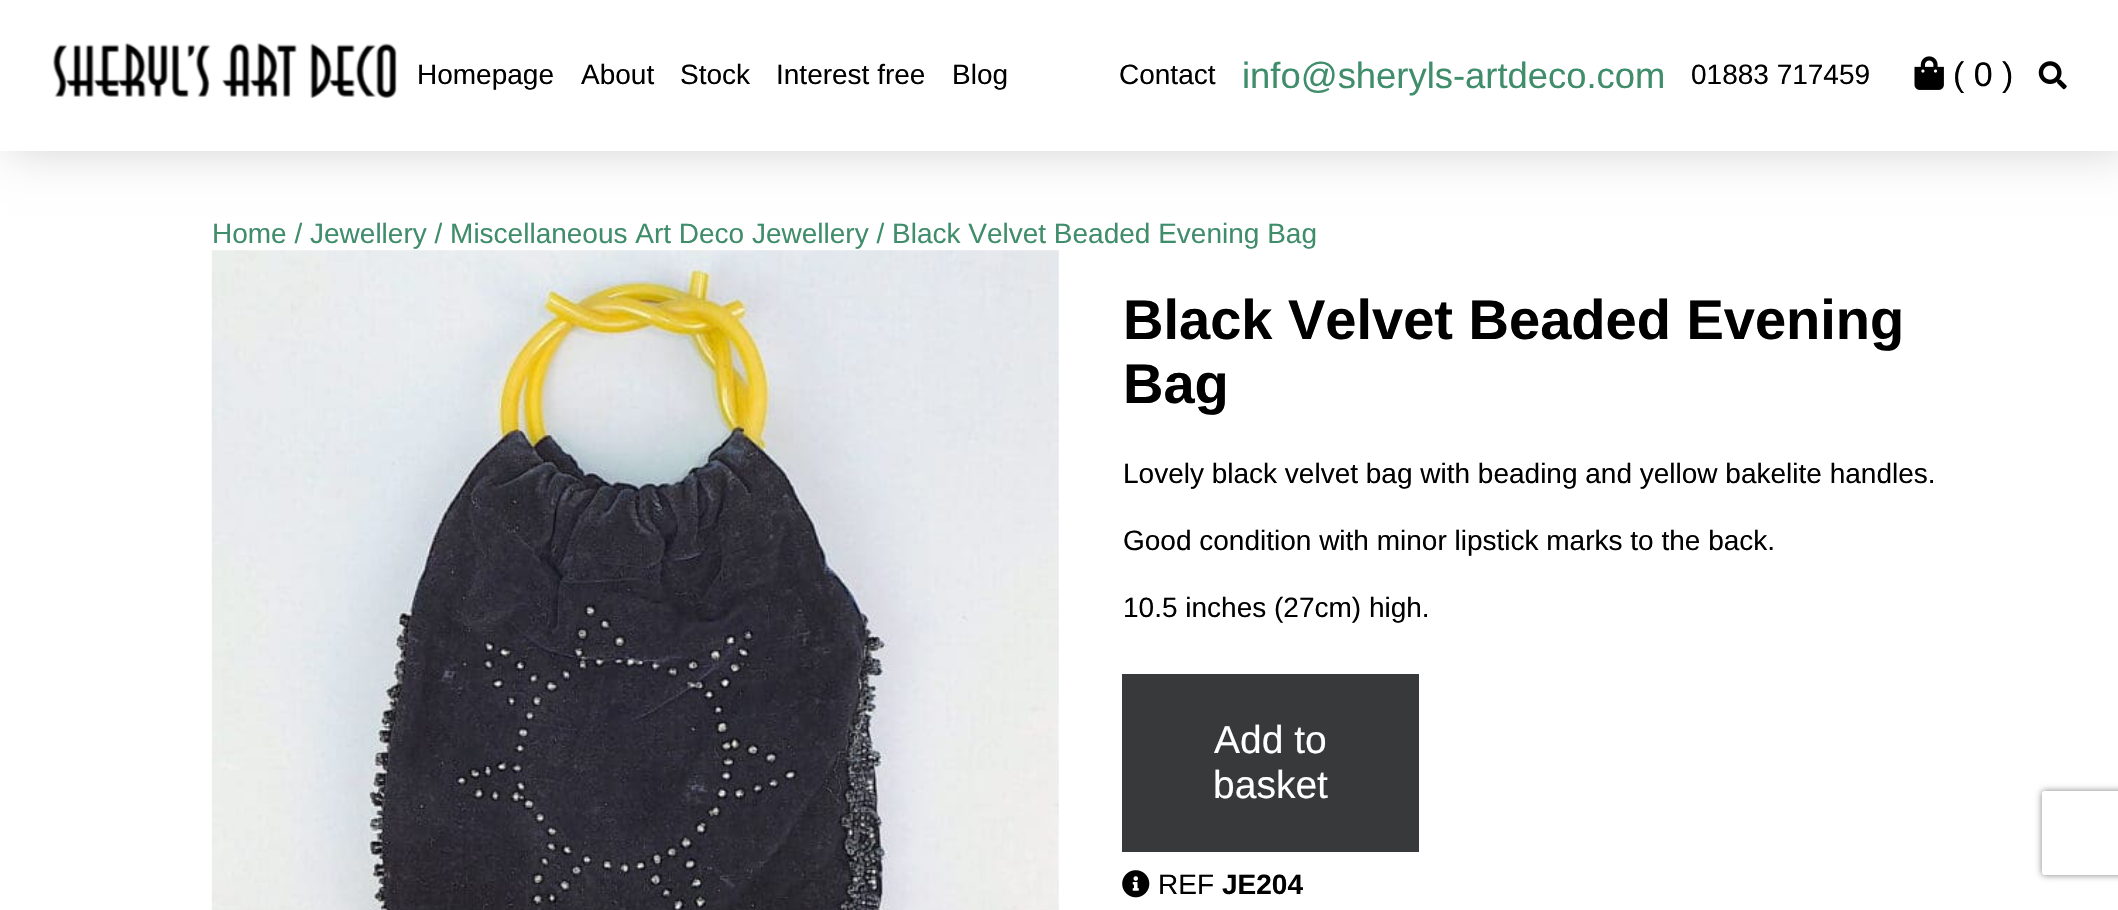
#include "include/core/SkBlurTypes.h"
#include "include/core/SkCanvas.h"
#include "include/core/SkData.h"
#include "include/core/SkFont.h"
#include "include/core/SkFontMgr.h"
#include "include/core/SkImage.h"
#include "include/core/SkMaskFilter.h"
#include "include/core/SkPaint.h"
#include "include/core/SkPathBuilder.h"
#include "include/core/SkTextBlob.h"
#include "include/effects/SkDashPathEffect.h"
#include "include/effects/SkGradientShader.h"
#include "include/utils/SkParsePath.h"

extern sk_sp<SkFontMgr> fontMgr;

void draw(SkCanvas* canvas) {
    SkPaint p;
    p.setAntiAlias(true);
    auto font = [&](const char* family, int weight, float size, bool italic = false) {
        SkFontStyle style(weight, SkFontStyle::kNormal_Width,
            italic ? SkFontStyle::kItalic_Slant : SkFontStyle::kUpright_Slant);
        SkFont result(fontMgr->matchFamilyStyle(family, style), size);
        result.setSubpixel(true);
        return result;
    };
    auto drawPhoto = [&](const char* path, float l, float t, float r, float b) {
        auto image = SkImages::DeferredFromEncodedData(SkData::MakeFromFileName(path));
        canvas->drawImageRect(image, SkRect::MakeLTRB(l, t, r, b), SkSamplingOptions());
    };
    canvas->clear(0xFFFFFFFF);
    p.setColor(0xFFD3D3D3);
    p.setMaskFilter(SkMaskFilter::MakeBlur(kNormal_SkBlurStyle, 22));
    canvas->drawRect(SkRect::MakeLTRB(9, 0, 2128, 151), p);
    p.setMaskFilter(nullptr);
    p.setColor(0xFFFFFFFF);
    canvas->drawRect(SkRect::MakeLTRB(0, 0, 2118, 151), p);
    drawPhoto("media/1.png", 53, 42, 397, 98);
    auto font1 = font("Liberation Sans", 400, 28);
    p.setColor(0xFF000000);
    {
        const struct { const char* s; float x, y; } items[] = {
            {"Homepage", 417, 84},
            {"About", 581, 84},
            {"Stock", 680, 84},
            {"Interest free", 776, 84},
            {"Blog", 952, 84},
            {"Contact", 1119, 84},
        };
        for (auto [s, x, y] : items) {
            canvas->drawString(s, x, y, font1, p);
        }
    }
    auto font2 = font("Liberation Sans", 400, 36.4f);
    p.setColor(0xFF408D6B);
    canvas->drawString("info@sheryls-artdeco.com", 1242, 88, font2, p);
    p.setColor(0xFF000000);
    canvas->drawString("01883 717459", 1691, 84, font1, p);
    drawPhoto("media/2.png", 1914, 56, 1944, 90);
    auto font3 = font("Liberation Sans", 400, 34);
    canvas->drawString("( 0 )", 1953, 86, font3, p);
    drawPhoto("media/3.png", 2038, 61, 2067, 90);
    p.setColor(0xFF408D6B);
    canvas->drawString("Home / Jewellery / Miscellaneous Art Deco Jewellery / Black Velvet Beaded Evening Bag", 212, 243, font1, p);
    drawPhoto("media/4.png", 211, 250, 1059, 910);
    auto font4 = font("Liberation Sans", 700, 56);
    p.setColor(0xFF000000);
    canvas->drawString("Black Velvet Beaded Evening", 1123, 339, font4, p);
    canvas->drawString("Bag", 1123, 403, font4, p);
    {
        const struct { const char* s; float x, y; } items[] = {
            {"Lovely black velvet bag with beading and yellow bakelite handles.", 1123, 483},
            {"Good condition with minor lipstick marks to the back.", 1123, 550},
            {"10.5 inches (27cm) high.", 1123, 617},
        };
        for (auto [s, x, y] : items) {
            canvas->drawString(s, x, y, font1, p);
        }
    }
    p.setColor(0xFF38393B);
    canvas->drawRect(SkRect::MakeLTRB(1122, 674, 1419, 852), p);
    auto font5 = font("Liberation Sans", 400, 39);
    p.setColor(0xFFFFFFFF);
    canvas->drawString("Add to", 1214, 753, font5, p);
    canvas->drawString("basket", 1213, 798, font5, p);
    drawPhoto("media/5.png", 1122, 870, 1150, 898);
    p.setColor(0xFF000000);
    canvas->drawString("REF", 1158, 894, font1, p);
    auto font6 = font("Liberation Sans", 700, 28);
    canvas->drawString("JE204", 1222, 894, font6, p);
    canvas->save();
    canvas->clipPath(SkPathBuilder(SkPathFillType::kEvenOdd).moveTo(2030, 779).lineTo(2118, 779).lineTo(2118, 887).lineTo(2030, 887).close().moveTo(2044.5f, 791).lineTo(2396.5f, 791).cubicTo(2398, 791, 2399, 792, 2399, 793.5f).lineTo(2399, 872.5f).cubicTo(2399, 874, 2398, 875, 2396.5f, 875).lineTo(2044.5f, 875).cubicTo(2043, 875, 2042, 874, 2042, 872.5f).lineTo(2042, 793.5f).cubicTo(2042, 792, 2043, 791, 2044.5f, 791).close().detach(), true);
    p.setColor(0xFF808080);
    p.setMaskFilter(SkMaskFilter::MakeBlur(kNormal_SkBlurStyle, 3.5f));
    canvas->drawRoundRect(SkRect::MakeLTRB(2042, 791, 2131, 875), 2.5f, 2.5f, p);
    p.setMaskFilter(nullptr);
    canvas->restore();
}
